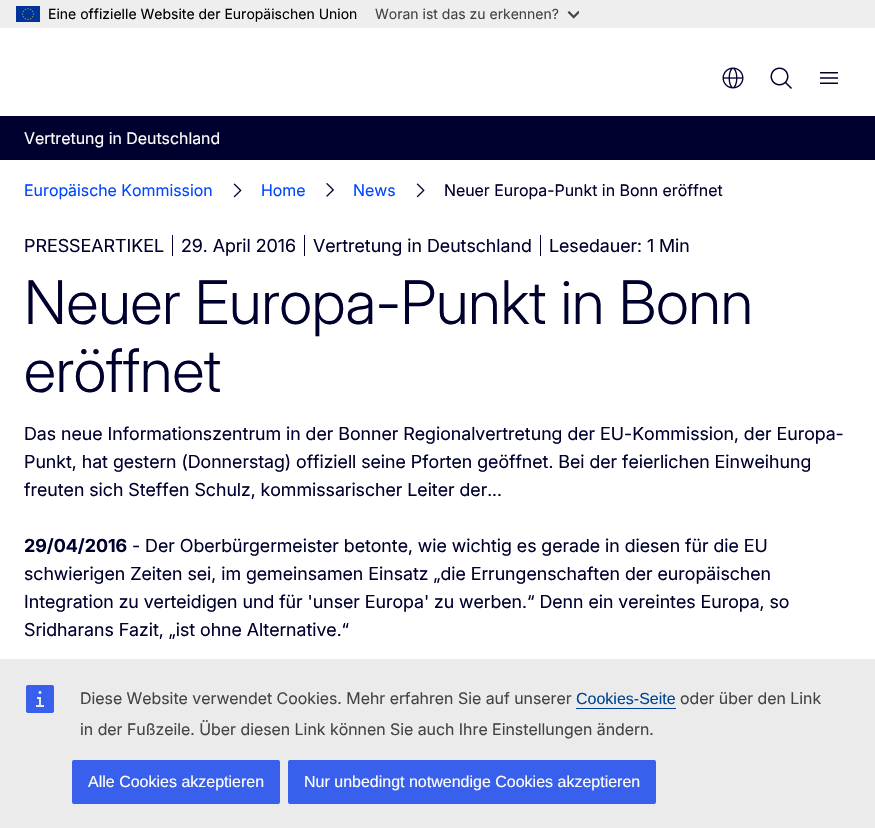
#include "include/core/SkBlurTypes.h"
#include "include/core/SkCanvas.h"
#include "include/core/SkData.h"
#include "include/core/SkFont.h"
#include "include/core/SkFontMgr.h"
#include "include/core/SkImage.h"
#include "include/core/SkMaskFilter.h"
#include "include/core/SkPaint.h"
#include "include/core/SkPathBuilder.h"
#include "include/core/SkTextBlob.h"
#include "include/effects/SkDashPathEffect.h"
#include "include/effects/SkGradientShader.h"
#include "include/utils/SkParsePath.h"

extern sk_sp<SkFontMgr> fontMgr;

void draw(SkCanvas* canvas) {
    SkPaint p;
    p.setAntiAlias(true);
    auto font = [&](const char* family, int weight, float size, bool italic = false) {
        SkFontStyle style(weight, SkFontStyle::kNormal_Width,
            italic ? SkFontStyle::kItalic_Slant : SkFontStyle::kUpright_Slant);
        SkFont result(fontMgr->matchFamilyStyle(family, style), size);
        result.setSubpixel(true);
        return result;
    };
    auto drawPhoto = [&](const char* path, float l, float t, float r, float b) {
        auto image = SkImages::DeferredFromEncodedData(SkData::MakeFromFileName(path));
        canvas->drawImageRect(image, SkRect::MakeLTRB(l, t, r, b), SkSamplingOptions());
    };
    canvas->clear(0xFFFFFFFF);
    p.setColor(0xFFEEEEEE);
    canvas->drawRect(SkRect::MakeLTRB(0, 0, 875, 28), p);
    drawPhoto("media/1.png", 16, 6, 40, 22);
    auto font1 = font("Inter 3", 400, 14);
    p.setColor(0xFF000000);
    canvas->drawString("Eine offizielle Website der Europäischen Union", 48, 19, font1, p);
    p.setColor(0xFF444444);
    canvas->drawString("Woran ist das zu erkennen?", 375, 19, font1, p);
    drawPhoto("media/2.png", 567, 11, 579, 19);
    drawPhoto("media/3.png", 722, 67, 744, 89);
    drawPhoto("media/4.png", 770, 67, 792, 89);
    drawPhoto("media/5.png", 820, 72, 838, 84);
    p.setColor(0xFF00002E);
    canvas->drawRect(SkRect::MakeLTRB(0, 116, 875, 160), p);
    auto font2 = font("Inter", 400, 16);
    p.setColor(0xFFFFFFFF);
    canvas->drawString("Vertretung in Deutschland", 24, 144, font2, p);
    p.setColor(0xFF0046FF);
    canvas->drawString("Europäische Kommission", 24, 196, font2, p);
    drawPhoto("media/6.png", 233, 183, 242, 198);
    canvas->drawString("Home", 261, 196, font2, p);
    drawPhoto("media/7.png", 326, 183, 334, 197);
    canvas->drawString("News", 353, 196, font2, p);
    drawPhoto("media/8.png", 416, 183, 425, 198);
    p.setColor(0xFF00002E);
    canvas->drawString("Neuer Europa-Punkt in Bonn eröffnet", 444, 196, font2, p);
    auto font3 = font("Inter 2", 400, 18);
    canvas->drawString("PRESSEARTIKEL", 24, 252, font3, p);
    canvas->drawRect(SkRect::MakeLTRB(172, 235, 173, 256), p);
    canvas->drawString("29. April 2016", 181, 252, font3, p);
    canvas->drawRect(SkRect::MakeLTRB(304, 235, 305, 256), p);
    canvas->drawString("Vertretung in Deutschland", 313, 252, font3, p);
    canvas->drawRect(SkRect::MakeLTRB(540, 235, 541, 256), p);
    canvas->drawString("Lesedauer: 1 Min", 549, 252, font3, p);
    auto font4 = font("Inter", 300, 60);
    canvas->drawString("Neuer Europa-Punkt in Bonn", 24, 324, font4, p);
    canvas->drawString("eröffnet", 24, 392, font4, p);
    {
        const struct { const char* s; float x, y; } items[] = {
            {"Das neue Informationszentrum in der Bonner Regionalvertretung der EU-Kommission, der Europa-", 24, 440},
            {"Punkt, hat gestern (Donnerstag) offiziell seine Pforten geöffnet. Bei der feierlichen Einweihung", 24, 468},
            {"freuten sich Steffen Schulz, kommissarischer Leiter der...", 24, 496},
        };
        for (auto [s, x, y] : items) {
            canvas->drawString(s, x, y, font3, p);
        }
    }
    auto font5 = font("Inter", 700, 18);
    canvas->drawString("29/04/2016", 24, 552, font5, p);
    {
        const struct { const char* s; float x, y; } items[] = {
            {"- Der Oberbürgermeister betonte, wie wichtig es gerade in diesen für die EU", 132, 552},
            {"schwierigen Zeiten sei, im gemeinsamen Einsatz „die Errungenschaften der europäischen", 24, 580},
            {"Integration zu verteidigen und für 'unser Europa' zu werben.“ Denn ein vereintes Europa, so", 24, 608},
            {"Sridharans Fazit, „ist ohne Alternative.“", 24, 636},
        };
        for (auto [s, x, y] : items) {
            canvas->drawString(s, x, y, font3, p);
        }
    }
    p.setColor(0xFFEBEBEB);
    canvas->drawRect(SkRect::MakeLTRB(0, 659, 875, 828), p);
    drawPhoto("media/9.png", 26, 685, 54, 713);
    p.setColor(0xFF444444);
    canvas->drawString("Diese Website verwendet Cookies. Mehr erfahren Sie auf unserer", 80, 704, font2, p);
    auto font6 = font("Liberation Sans", 400, 16);
    p.setColor(0xFF004494);
    canvas->drawString("Cookies-Seite", 576, 704, font6, p);
    canvas->drawRect(SkRect::MakeLTRB(576, 708, 676, 709), p);
    p.setColor(0xFF444444);
    canvas->drawString("oder über den Link", 680, 704, font2, p);
    canvas->drawString("in der Fußzeile. Über diesen Link können Sie auch Ihre Einstellungen ändern.", 80, 735, font2, p);
    p.setColor(0xFF3860ED);
    canvas->drawRoundRect(SkRect::MakeLTRB(72, 760, 280, 804), 2, 2, p);
    p.setColor(0xFFFFFFFF);
    canvas->drawString("Alle Cookies akzeptieren", 88, 787, font6, p);
    p.setColor(0xFF3860ED);
    canvas->drawRoundRect(SkRect::MakeLTRB(288, 760, 656, 804), 2, 2, p);
    p.setColor(0xFFFFFFFF);
    canvas->drawString("Nur unbedingt notwendige Cookies akzeptieren", 304, 787, font6, p);
}
